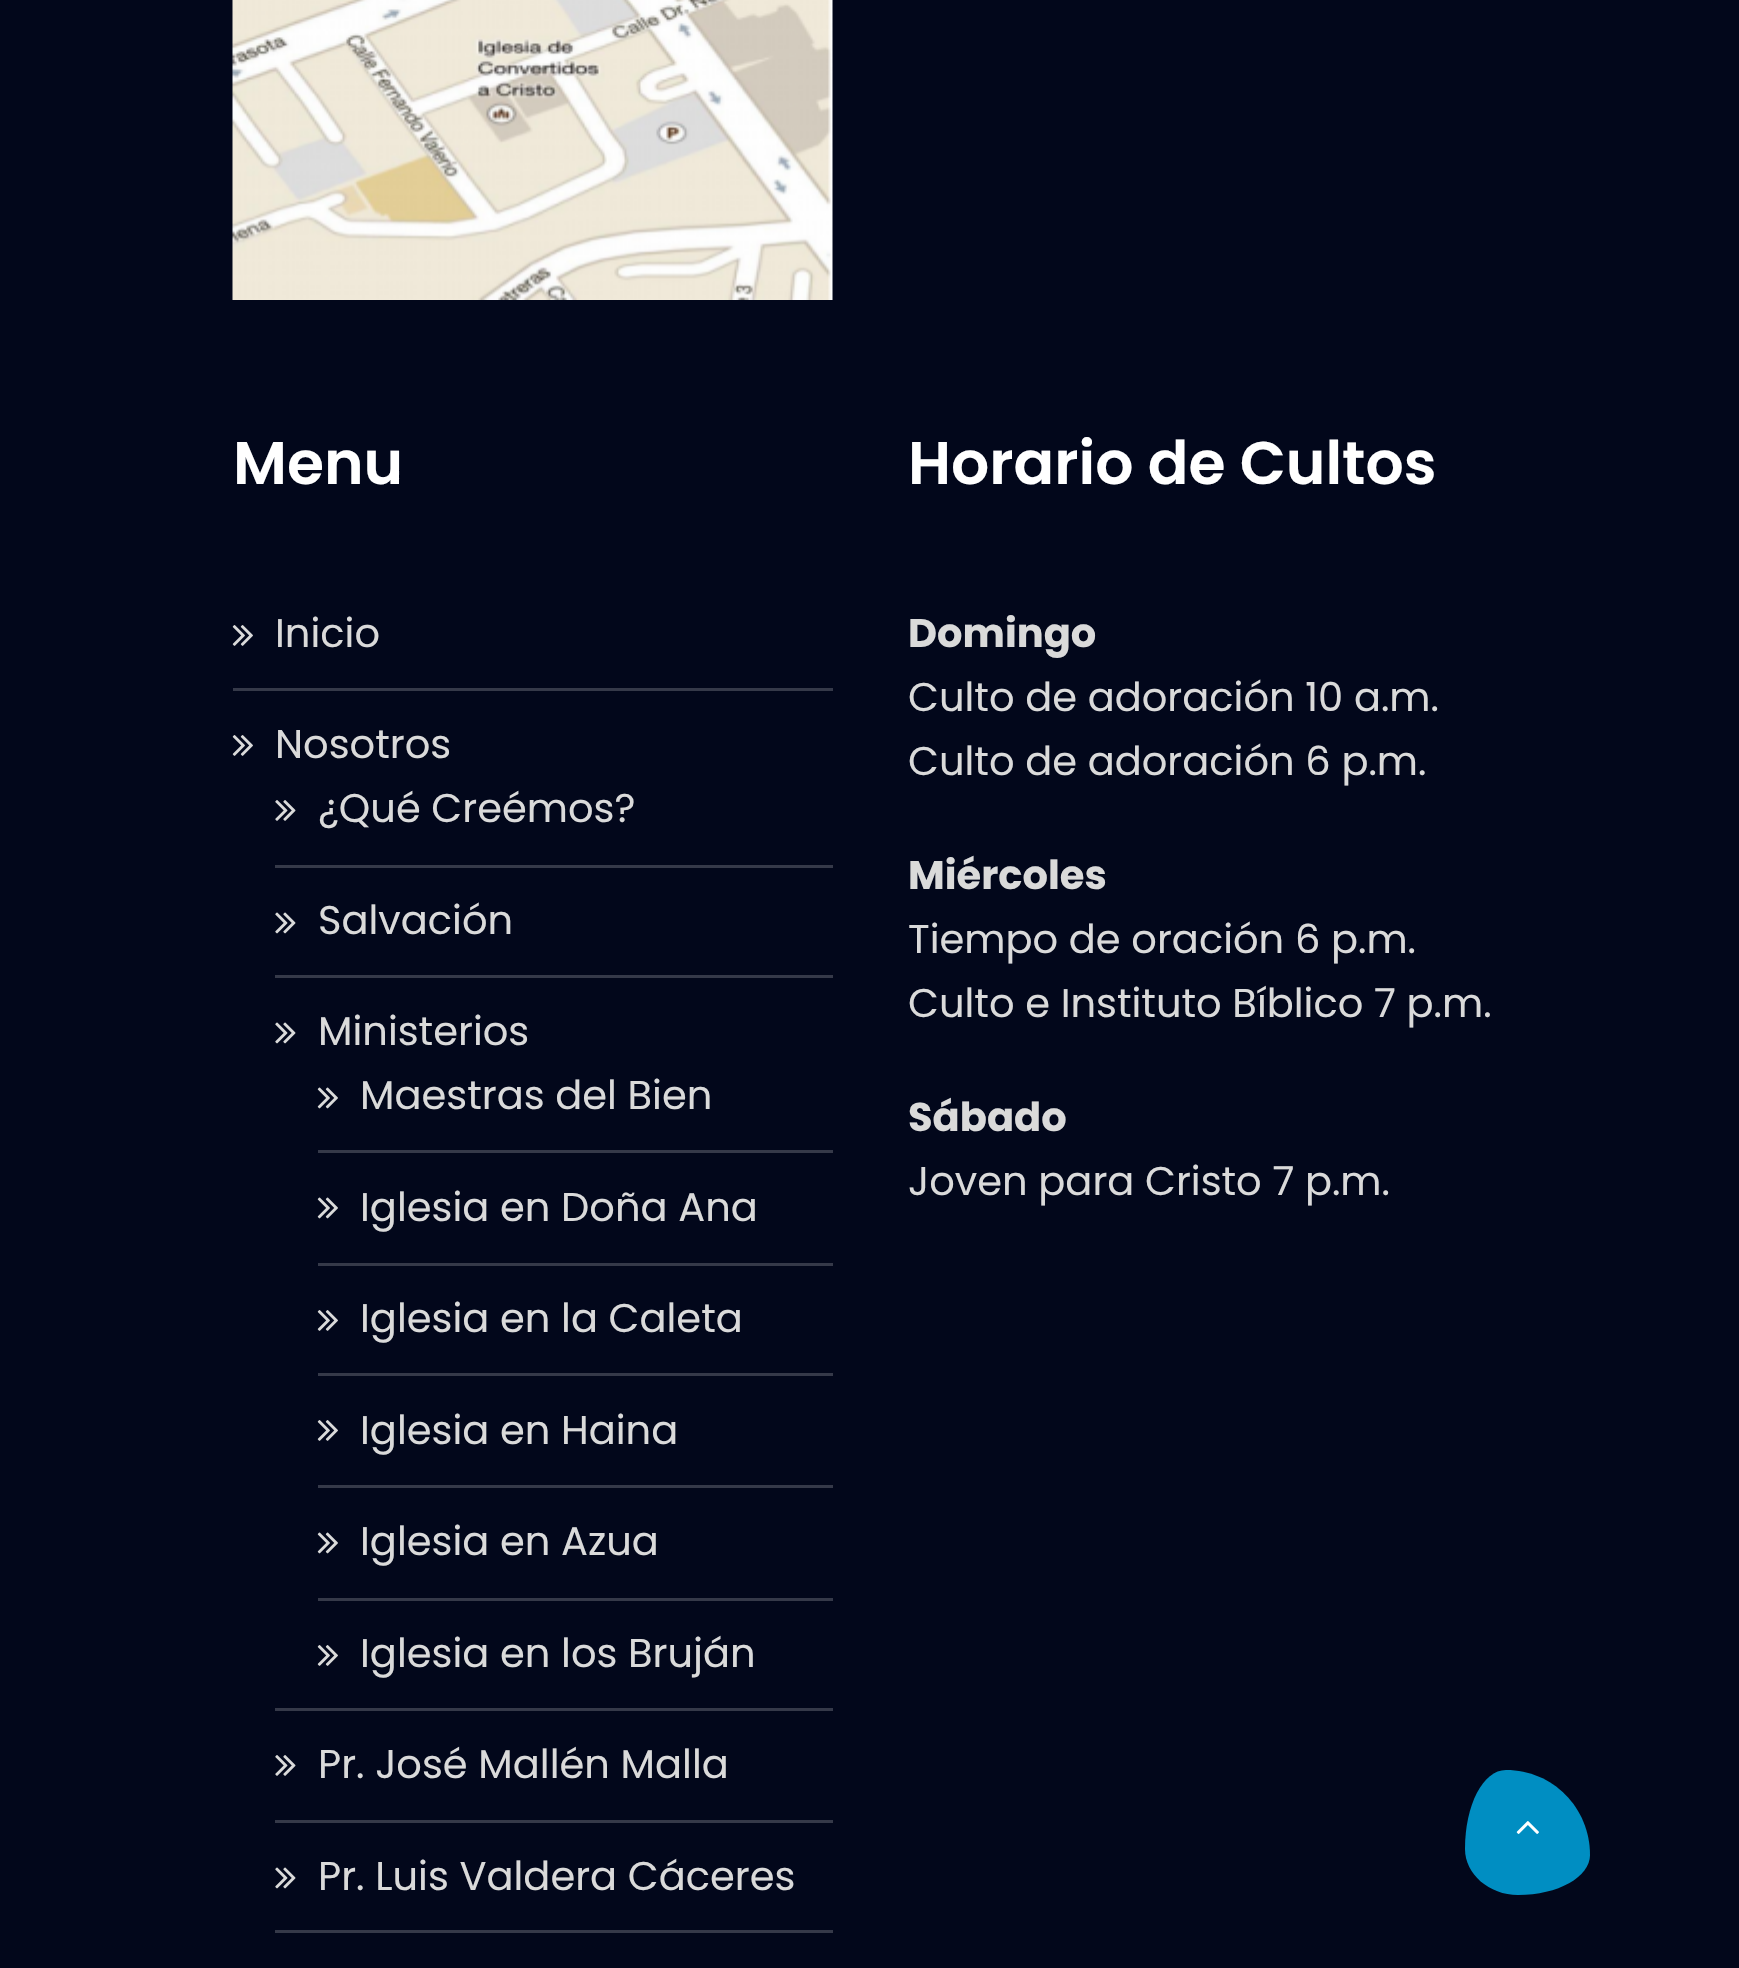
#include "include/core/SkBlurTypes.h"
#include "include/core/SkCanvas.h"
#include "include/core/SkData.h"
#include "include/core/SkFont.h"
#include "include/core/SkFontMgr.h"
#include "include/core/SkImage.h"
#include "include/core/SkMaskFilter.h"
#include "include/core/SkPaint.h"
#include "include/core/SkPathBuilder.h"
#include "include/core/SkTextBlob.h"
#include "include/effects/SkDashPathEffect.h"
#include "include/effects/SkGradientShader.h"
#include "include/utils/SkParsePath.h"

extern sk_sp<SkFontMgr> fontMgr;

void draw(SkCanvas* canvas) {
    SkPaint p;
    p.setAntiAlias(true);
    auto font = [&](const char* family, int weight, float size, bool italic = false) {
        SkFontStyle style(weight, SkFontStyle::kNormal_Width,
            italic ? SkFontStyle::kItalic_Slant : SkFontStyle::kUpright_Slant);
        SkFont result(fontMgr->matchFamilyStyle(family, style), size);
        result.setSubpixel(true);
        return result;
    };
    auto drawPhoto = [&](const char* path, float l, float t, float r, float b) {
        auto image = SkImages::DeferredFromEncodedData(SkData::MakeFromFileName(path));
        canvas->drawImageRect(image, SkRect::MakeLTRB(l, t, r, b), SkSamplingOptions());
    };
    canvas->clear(0xFF02071B);
    drawPhoto("media/1.png", 232, 0, 833, 300);
    auto font1 = font("Poppins", 600, 60);
    p.setColor(0xFFFFFFFF);
    canvas->drawString("Menu", 233, 484, font1, p);
    p.setColor(0xFF353949);
    canvas->drawRect(SkRect::MakeLTRB(233, 688, 833, 691), p);
    drawPhoto("media/2.png", 232, 625, 253, 646);
    auto font2 = font("Poppins", 400, 40);
    p.setColor(0xFFDADADA);
    canvas->drawString("Inicio", 275, 647, font2, p);
    drawPhoto("media/2.png", 232, 735, 253, 756);
    canvas->drawString("Nosotros", 275, 758, font2, p);
    p.setColor(0xFF353949);
    canvas->drawRect(SkRect::MakeLTRB(275, 865, 833, 868), p);
    drawPhoto("media/3.png", 275, 800, 296, 821);
    p.setColor(0xFFDADADA);
    canvas->drawString("¿Qué Creémos?", 318, 822, font2, p);
    p.setColor(0xFF353949);
    canvas->drawRect(SkRect::MakeLTRB(275, 975, 833, 978), p);
    drawPhoto("media/4.png", 275, 912, 296, 934);
    p.setColor(0xFFDADADA);
    canvas->drawString("Salvación", 318, 934, font2, p);
    p.setColor(0xFF353949);
    canvas->drawRect(SkRect::MakeLTRB(275, 1708, 833, 1711), p);
    drawPhoto("media/4.png", 275, 1022, 296, 1044);
    p.setColor(0xFFDADADA);
    canvas->drawString("Ministerios", 318, 1045, font2, p);
    p.setColor(0xFF353949);
    canvas->drawRect(SkRect::MakeLTRB(318, 1150, 833, 1153), p);
    drawPhoto("media/5.png", 317, 1087, 338, 1109);
    p.setColor(0xFFDADADA);
    canvas->drawString("Maestras del Bien", 360, 1109, font2, p);
    p.setColor(0xFF353949);
    canvas->drawRect(SkRect::MakeLTRB(318, 1263, 833, 1266), p);
    drawPhoto("media/5.png", 317, 1197, 338, 1219);
    p.setColor(0xFFDADADA);
    canvas->drawString("Iglesia en Doña Ana", 360, 1221, font2, p);
    p.setColor(0xFF353949);
    canvas->drawRect(SkRect::MakeLTRB(318, 1373, 833, 1376), p);
    drawPhoto("media/2.png", 317, 1310, 338, 1331);
    p.setColor(0xFFDADADA);
    canvas->drawString("Iglesia en la Caleta", 360, 1332, font2, p);
    p.setColor(0xFF353949);
    canvas->drawRect(SkRect::MakeLTRB(318, 1485, 833, 1488), p);
    drawPhoto("media/2.png", 317, 1420, 338, 1441);
    p.setColor(0xFFDADADA);
    canvas->drawString("Iglesia en Haina", 360, 1444, font2, p);
    p.setColor(0xFF353949);
    canvas->drawRect(SkRect::MakeLTRB(318, 1598, 833, 1601), p);
    drawPhoto("media/5.png", 317, 1532, 338, 1554);
    p.setColor(0xFFDADADA);
    canvas->drawString("Iglesia en Azua", 360, 1555, font2, p);
    drawPhoto("media/2.png", 317, 1645, 338, 1666);
    canvas->drawString("Iglesia en los Bruján", 360, 1667, font2, p);
    p.setColor(0xFF353949);
    canvas->drawRect(SkRect::MakeLTRB(275, 1820, 833, 1823), p);
    drawPhoto("media/3.png", 275, 1755, 296, 1776);
    p.setColor(0xFFDADADA);
    canvas->drawString("Pr. José Mallén Malla", 318, 1778, font2, p);
    p.setColor(0xFF353949);
    canvas->drawRect(SkRect::MakeLTRB(275, 1930, 833, 1933), p);
    drawPhoto("media/4.png", 275, 1867, 296, 1889);
    p.setColor(0xFFDADADA);
    canvas->drawString("Pr. Luis Valdera Cáceres", 318, 1890, font2, p);
    p.setColor(0xFFFFFFFF);
    canvas->drawString("Horario de Cultos", 908, 484, font1, p);
    auto font3 = font("Poppins", 700, 40);
    p.setColor(0xFFDADADA);
    canvas->drawString("Domingo", 908, 647, font3, p);
    canvas->drawString("Culto de adoración 10 a.m.", 908, 711, font2, p);
    canvas->drawString("Culto de adoración 6 p.m.", 908, 775, font2, p);
    canvas->drawString("Miércoles", 908, 889, font3, p);
    canvas->drawString("Tiempo de oración 6 p.m.", 908, 953, font2, p);
    canvas->drawString("Culto e Instituto Bíblico 7 p.m.", 908, 1017, font2, p);
    canvas->drawString("Sábado", 908, 1131, font3, p);
    canvas->drawString("Joven para Cristo 7 p.m.", 908, 1195, font2, p);
    p.setColor(0xFF008EC2);
    canvas->drawPath(SkPathBuilder().moveTo(1506, 1770).cubicTo(1553, 1770, 1590, 1808, 1590, 1855).cubicTo(1590, 1877, 1558, 1895, 1518, 1895).cubicTo(1489, 1895, 1465, 1874, 1465, 1849).cubicTo(1465, 1805, 1483, 1770, 1506, 1770).close().detach(), p);
    drawPhoto("media/6.png", 1516, 1821, 1539, 1834);
}
